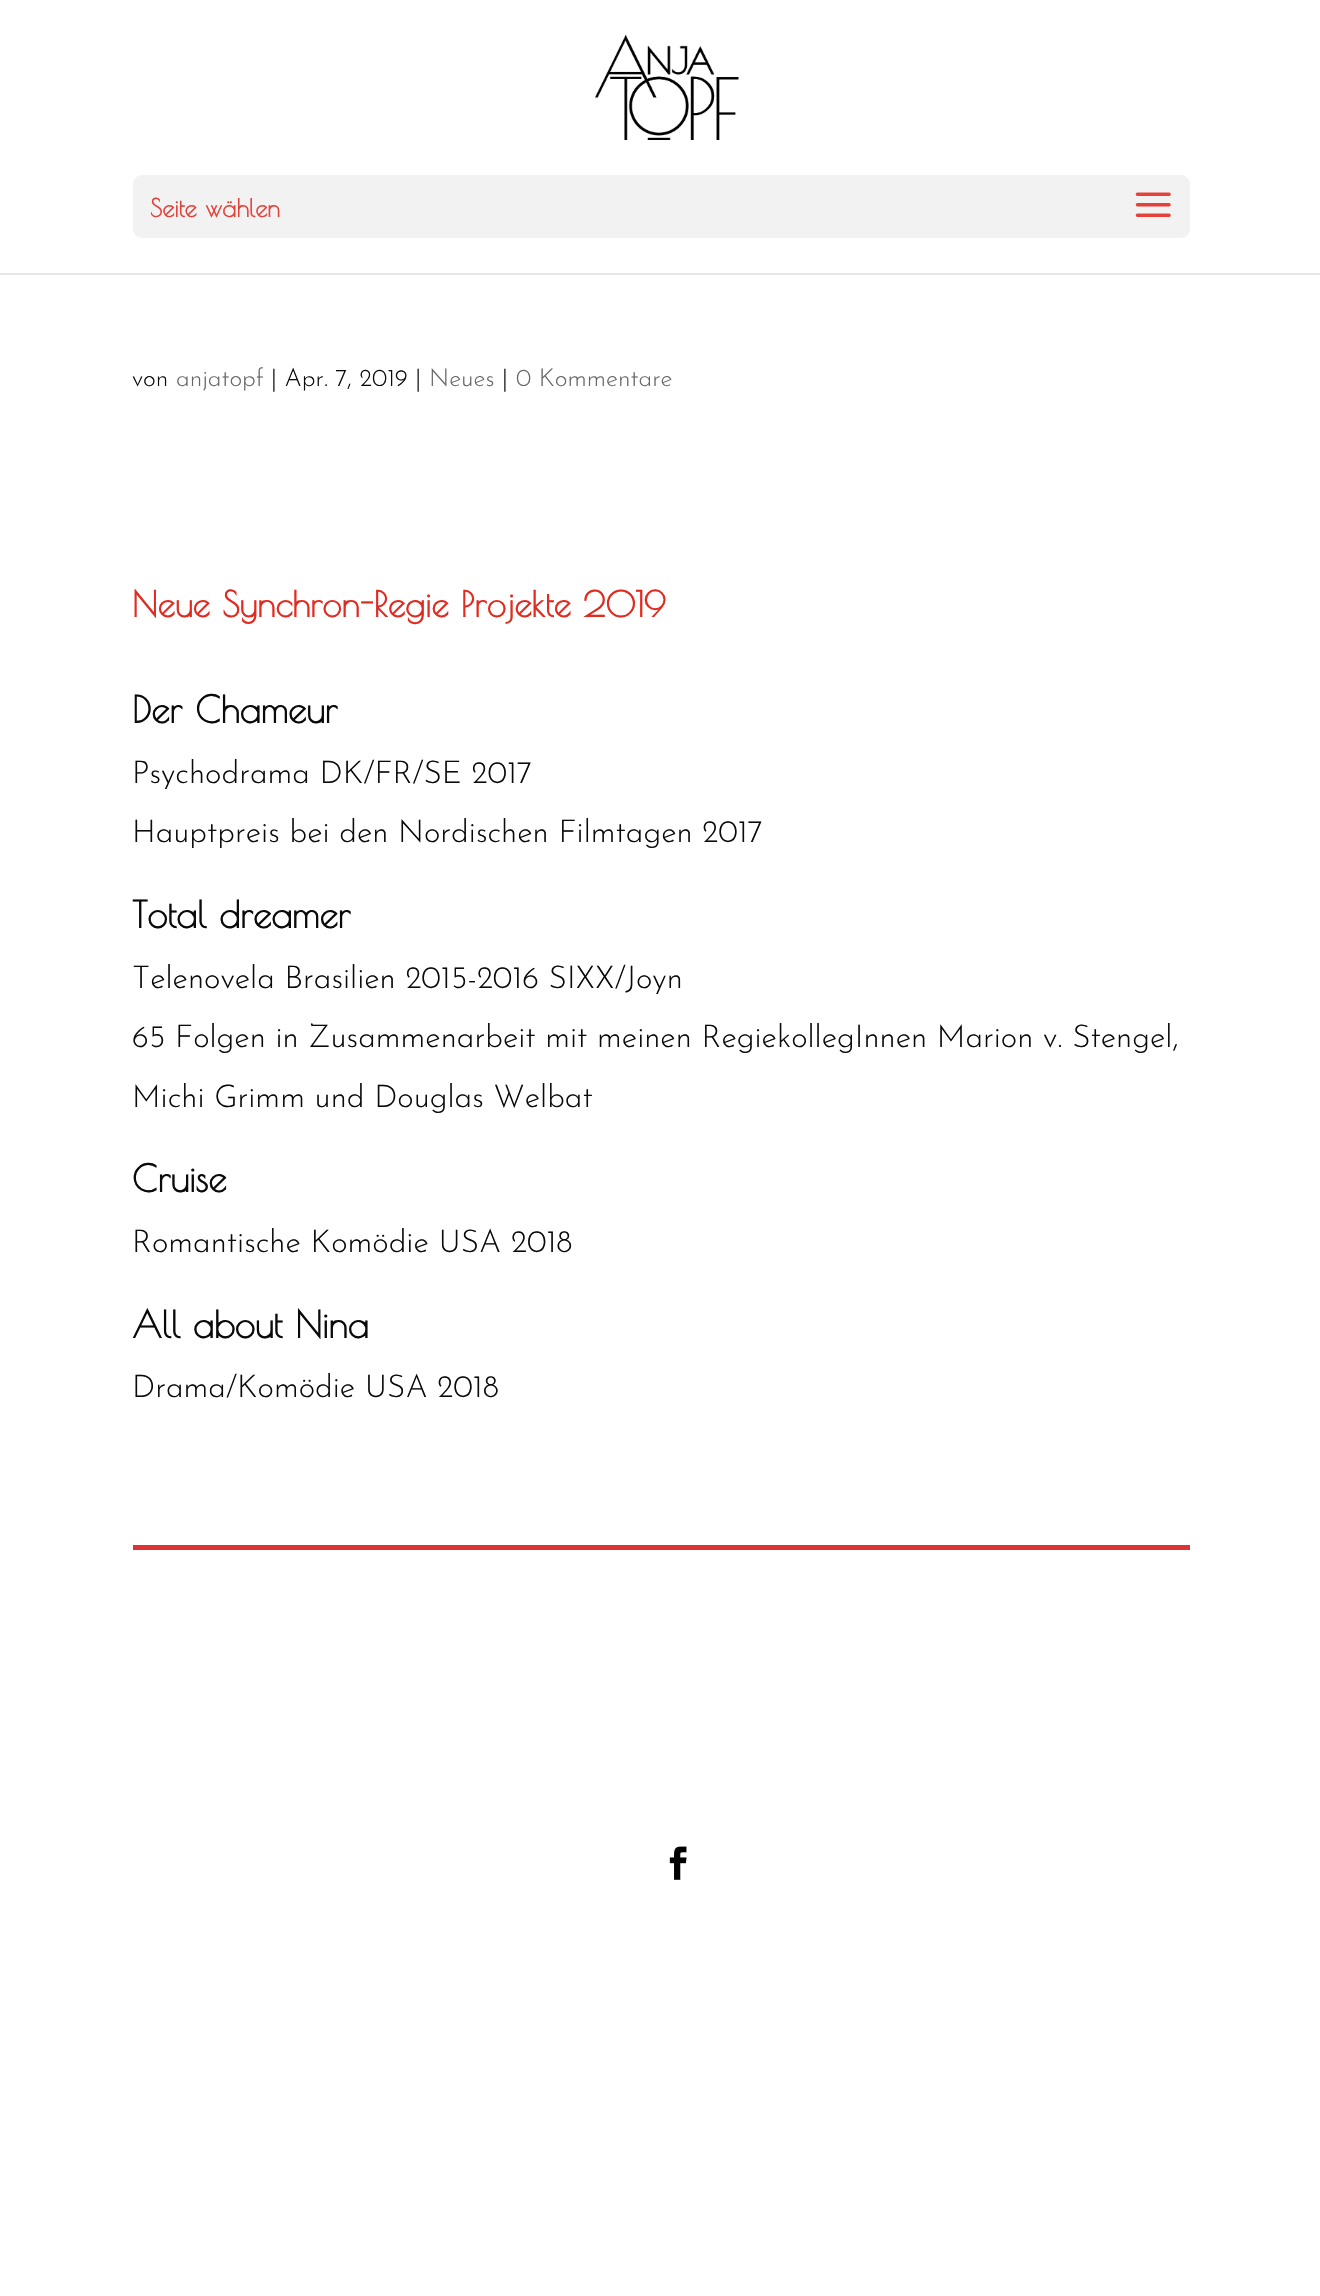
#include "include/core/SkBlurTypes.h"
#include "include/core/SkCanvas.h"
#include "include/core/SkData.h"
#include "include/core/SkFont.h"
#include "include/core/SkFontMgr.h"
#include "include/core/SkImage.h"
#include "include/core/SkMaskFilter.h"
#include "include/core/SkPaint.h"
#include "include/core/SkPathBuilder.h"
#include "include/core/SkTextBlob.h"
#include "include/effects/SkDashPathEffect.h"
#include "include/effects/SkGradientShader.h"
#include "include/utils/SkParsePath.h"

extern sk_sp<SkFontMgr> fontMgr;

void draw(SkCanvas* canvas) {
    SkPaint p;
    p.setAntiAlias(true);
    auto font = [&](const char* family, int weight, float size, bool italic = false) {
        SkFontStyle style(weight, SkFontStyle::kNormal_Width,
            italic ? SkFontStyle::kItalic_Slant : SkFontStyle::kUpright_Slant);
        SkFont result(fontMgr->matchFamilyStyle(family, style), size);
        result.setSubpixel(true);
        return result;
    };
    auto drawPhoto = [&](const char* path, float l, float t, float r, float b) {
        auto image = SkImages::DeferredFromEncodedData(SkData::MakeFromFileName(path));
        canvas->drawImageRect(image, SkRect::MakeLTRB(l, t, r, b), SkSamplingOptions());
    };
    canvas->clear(0xFFFFFFFF);
    p.setColor(0xFFE6E6E6);
    canvas->drawRect(SkRect::MakeLTRB(0, 273, 1320, 275), p);
    drawPhoto("media/1.png", 595, 35, 739, 140);
    p.setColor(0xFFF2F2F2);
    canvas->drawRoundRect(SkRect::MakeLTRB(133, 175, 1190, 238), 9, 9, p);
    auto font1 = font("Poiret One", 700, 24.5f);
    p.setColor(0xFFE24139);
    canvas->drawString("Seite wählen", 150, 217, font1, p);
    drawPhoto("media/2.png", 1135, 192, 1171, 217);
    auto font2 = font("Josefin Sans", 100, 24.5f);
    p.setColor(0xFF0A0A0A);
    canvas->drawString("von", 132, 386, font2, p);
    p.setColor(0xFF666666);
    canvas->drawString("anjatopf", 176, 386, font2, p);
    p.setColor(0xFF0A0A0A);
    canvas->drawString("| Apr. 7, 2019 |", 271, 386, font2, p);
    p.setColor(0xFF666666);
    canvas->drawString("Neues", 429, 386, font2, p);
    p.setColor(0xFF0A0A0A);
    canvas->drawString("|", 502, 386, font2, p);
    p.setColor(0xFF666666);
    canvas->drawString("0 Kommentare", 516, 386, font2, p);
    auto font3 = font("Poiret One", 700, 35);
    p.setColor(0xFFE02B20);
    canvas->drawString("Neue Synchron-Regie Projekte 2019", 132, 617, font3, p);
    auto font4 = font("Poiret One", 700, 36.75f);
    p.setColor(0xFF0A0A0A);
    canvas->drawString("Der Chameur", 132, 723, font4, p);
    auto font5 = font("Josefin Sans", 100, 31.5f);
    canvas->drawString("Psychodrama DK/FR/SE 2017", 132, 783, font5, p);
    canvas->drawString("Hauptpreis bei den Nordischen Filmtagen 2017", 132, 842, font5, p);
    canvas->drawString("Total dreamer", 132, 928, font4, p);
    {
        const struct { const char* s; float x, y; } items[] = {
            {"Telenovela Brasilien 2015-2016 SIXX/Joyn", 132, 988},
            {"65 Folgen in Zusammenarbeit mit meinen RegiekollegInnen Marion v. Stengel,", 132, 1047},
            {"Michi Grimm und Douglas Welbat", 132, 1107},
        };
        for (auto [s, x, y] : items) {
            canvas->drawString(s, x, y, font5, p);
        }
    }
    canvas->drawString("Cruise", 132, 1192, font4, p);
    canvas->drawString("Romantische Komödie USA 2018", 132, 1252, font5, p);
    canvas->drawString("All about Nina", 132, 1338, font4, p);
    canvas->drawString("Drama/Komödie USA 2018", 132, 1397, font5, p);
    p.setColor(0xFFDD3333);
    canvas->drawRect(SkRect::MakeLTRB(133, 1545, 1190, 1550), p);
    drawPhoto("media/3.png", 669, 1846, 687, 1880);
}
